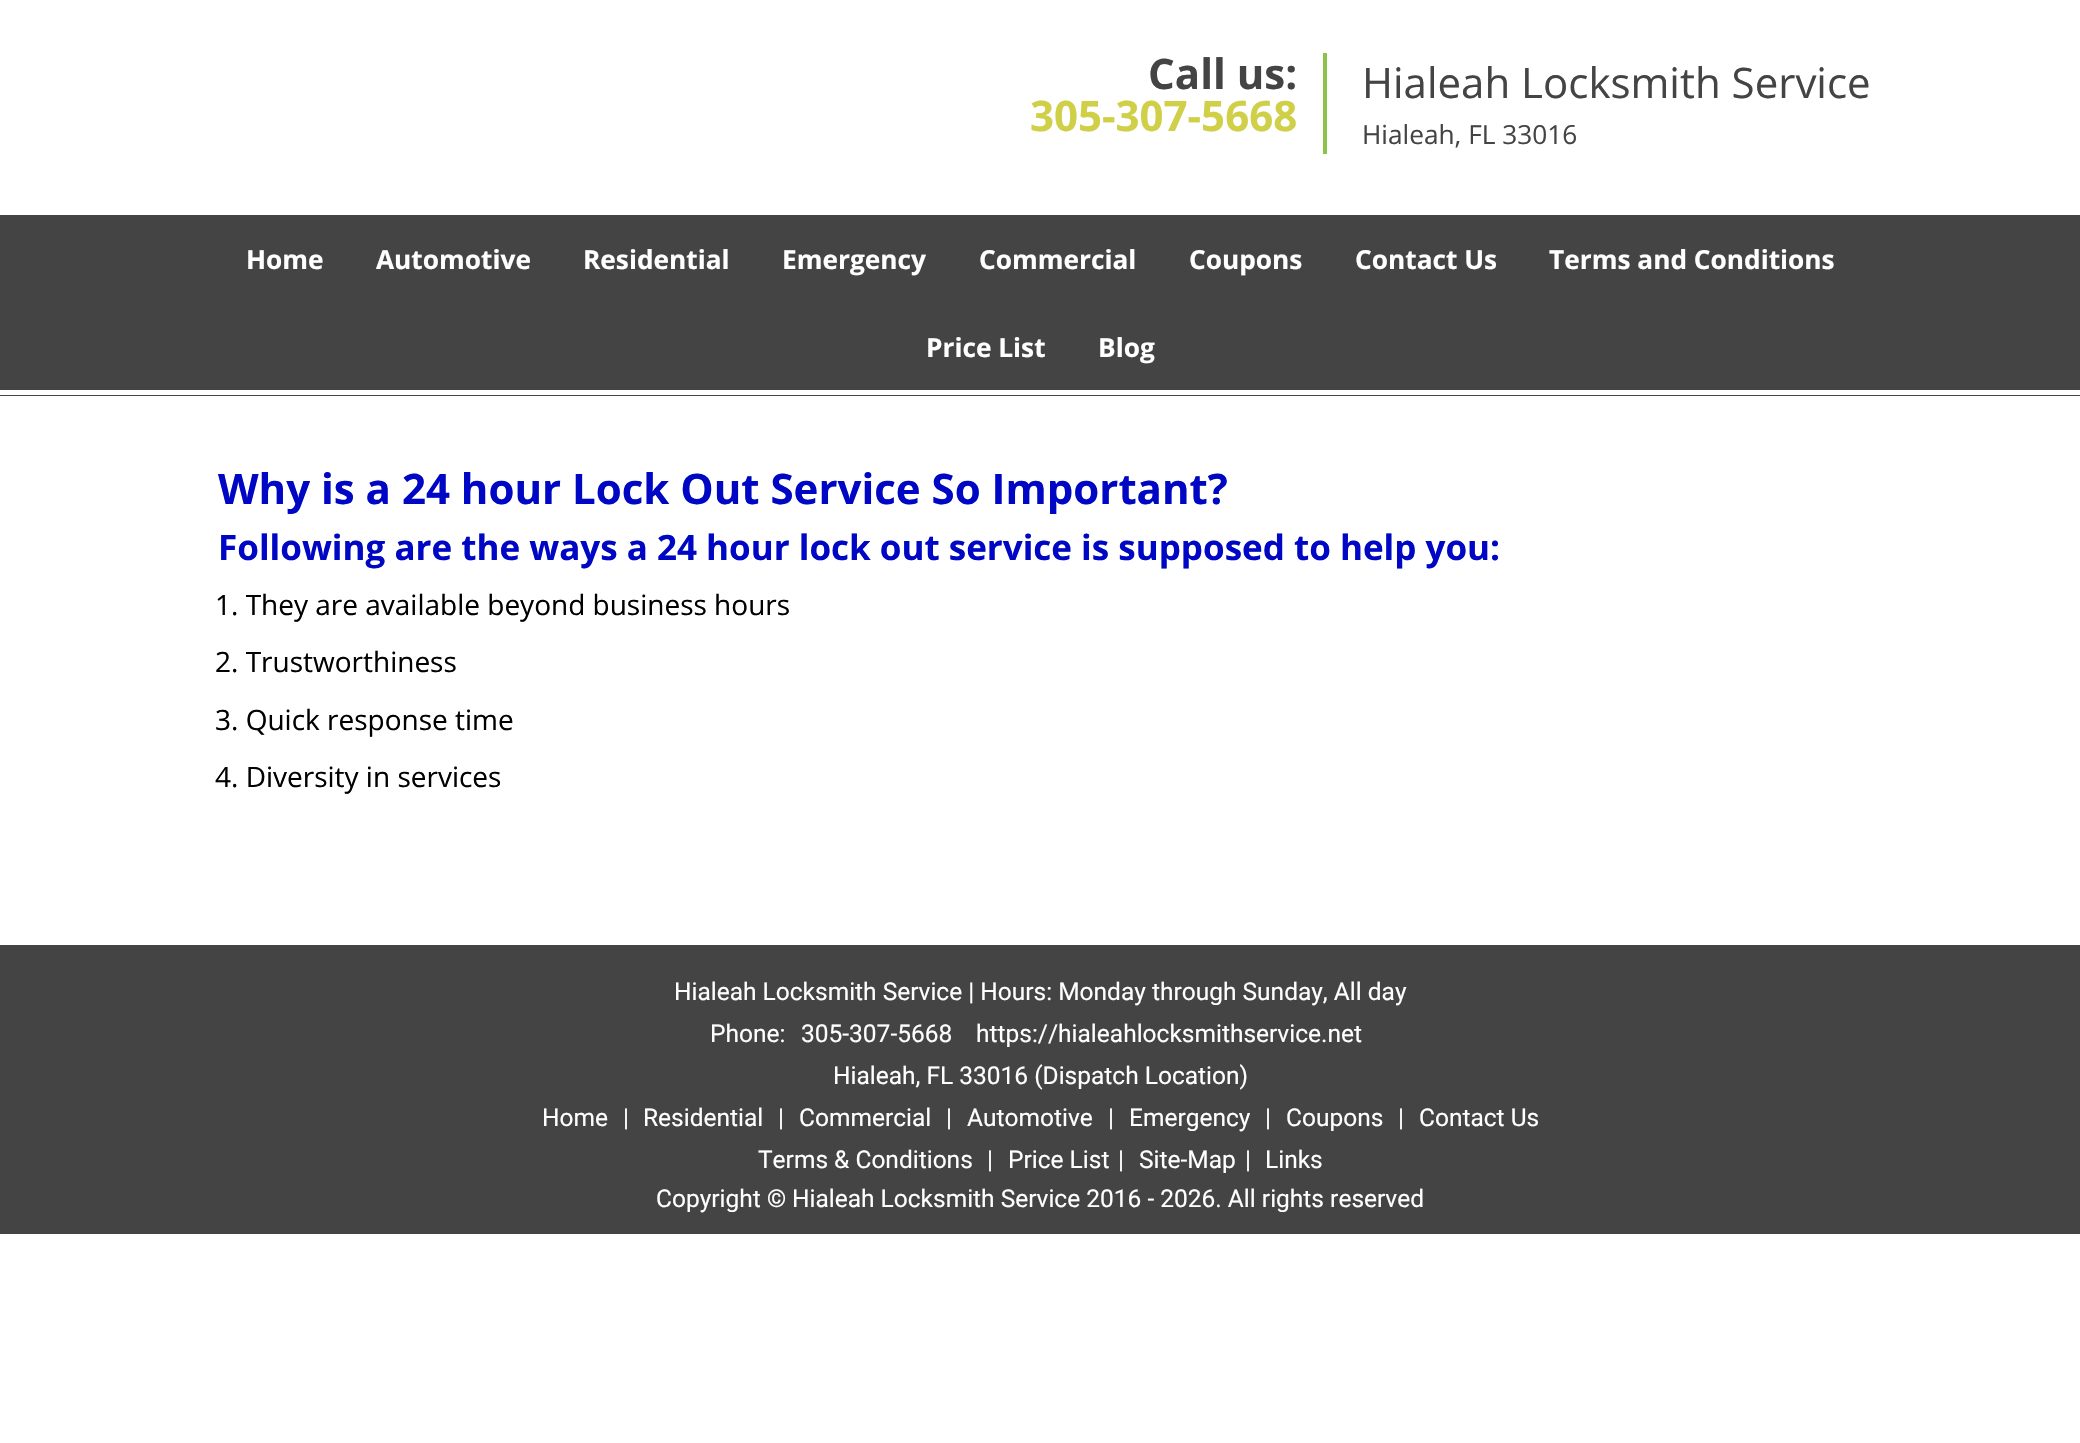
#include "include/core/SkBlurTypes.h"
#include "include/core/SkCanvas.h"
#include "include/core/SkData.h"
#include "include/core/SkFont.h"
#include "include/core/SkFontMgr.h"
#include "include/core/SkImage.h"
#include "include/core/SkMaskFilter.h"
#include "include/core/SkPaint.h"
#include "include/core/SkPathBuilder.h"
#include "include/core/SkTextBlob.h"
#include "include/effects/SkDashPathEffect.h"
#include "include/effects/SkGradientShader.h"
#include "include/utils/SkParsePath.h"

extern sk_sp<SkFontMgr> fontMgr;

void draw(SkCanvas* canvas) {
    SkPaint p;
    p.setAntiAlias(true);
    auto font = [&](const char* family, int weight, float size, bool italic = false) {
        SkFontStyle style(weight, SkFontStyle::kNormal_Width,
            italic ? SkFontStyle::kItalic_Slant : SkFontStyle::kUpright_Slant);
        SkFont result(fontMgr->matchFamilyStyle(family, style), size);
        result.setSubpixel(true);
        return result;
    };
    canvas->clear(0xFFFFFFFF);
    auto font1 = font("Open Sans", 700, 42);
    p.setColor(0xFF444444);
    canvas->drawString("Call us:", 1148, 89, font1, p);
    p.setColor(0xFFCFCF48);
    canvas->drawString("305-307-5668", 1030, 131, font1, p);
    p.setColor(0xFF8CC449);
    canvas->drawRect(SkRect::MakeLTRB(1323, 53, 1327, 154), p);
    auto font2 = font("Open Sans", 400, 42);
    p.setColor(0xFF444444);
    canvas->drawString("Hialeah Locksmith Service", 1362, 98, font2, p);
    auto font3 = font("Open Sans", 400, 26.25f);
    canvas->drawString("Hialeah, FL 33016", 1362, 144, font3, p);
    canvas->drawRect(SkRect::MakeLTRB(0, 215, 2080, 396), p);
    p.setColor(0xFFFEFEFE);
    canvas->drawRect(SkRect::MakeLTRB(0, 390, 2080, 395), p);
    auto font4 = font("Open Sans", 700, 26.25f);
    p.setColor(0xFFFFFFFF);
    {
        const struct { const char* s; float x, y; } items[] = {
            {"Home", 246, 269},
            {"Automotive", 376, 269},
            {"Residential", 583, 269},
            {"Emergency", 782, 269},
            {"Commercial", 979, 269},
            {"Coupons", 1189, 269},
            {"Contact Us", 1355, 269},
            {"Terms and Conditions", 1549, 269},
            {"Price List", 926, 357},
            {"Blog", 1098, 357},
        };
        for (auto [s, x, y] : items) {
            canvas->drawString(s, x, y, font4, p);
        }
    }
    p.setColor(0xFF0007C4);
    canvas->drawString("Why is a 24 hour Lock Out Service So Important?", 218, 504, font1, p);
    auto font5 = font("Open Sans", 700, 35);
    canvas->drawString("Following are the ways a 24 hour lock out service is supposed to help you:", 218, 560, font5, p);
    auto font6 = font("Open Sans", 400, 28);
    p.setColor(0xFF000000);
    {
        const struct { const char* s; float x, y; } items[] = {
            {"1. They are available beyond business hours", 215, 615},
            {"2. Trustworthiness", 215, 672},
            {"3. Quick response time", 215, 730},
            {"4. Diversity in services", 215, 787},
        };
        for (auto [s, x, y] : items) {
            canvas->drawString(s, x, y, font6, p);
        }
    }
    p.setColor(0xFF444444);
    canvas->drawRect(SkRect::MakeLTRB(0, 945, 2080, 1234), p);
    auto font7 = font("Roboto", 400, 24.5f);
    p.setColor(0xFFFFFFFF);
    {
        const struct { const char* s; float x, y; } items[] = {
            {"Hialeah Locksmith Service | Hours: Monday through Sunday, All day", 674, 1000},
            {"Phone:", 710, 1042},
            {"305-307-5668", 801, 1042},
            {"https://hialeahlocksmithservice.net", 976, 1042},
            {"Hialeah, FL 33016 (Dispatch Location)", 833, 1084},
            {"Home", 542, 1126},
            {"|", 623, 1126},
            {"Residential", 643, 1126},
            {"|", 778, 1126},
            {"Commercial", 799, 1126},
            {"|", 946, 1126},
            {"Automotive", 967, 1126},
            {"|", 1108, 1126},
            {"Emergency", 1129, 1126},
            {"|", 1265, 1126},
            {"Coupons", 1286, 1126},
            {"|", 1398, 1126},
            {"Contact Us", 1419, 1126},
            {"Terms & Conditions", 758, 1168},
            {"|", 987, 1168},
            {"Price List", 1008, 1168},
            {"|", 1118, 1168},
            {"Site-Map", 1139, 1168},
            {"|", 1245, 1168},
            {"Links", 1265, 1168},
            {"Copyright", 656, 1207},
        };
        for (auto [s, x, y] : items) {
            canvas->drawString(s, x, y, font7, p);
        }
    }
    auto font8 = font("Roboto", 700, 24.5f);
    canvas->drawString("©", 767, 1207, font8, p);
    canvas->drawString("Hialeah Locksmith Service 2016 - 2026. All rights reserved", 792, 1207, font7, p);
}
